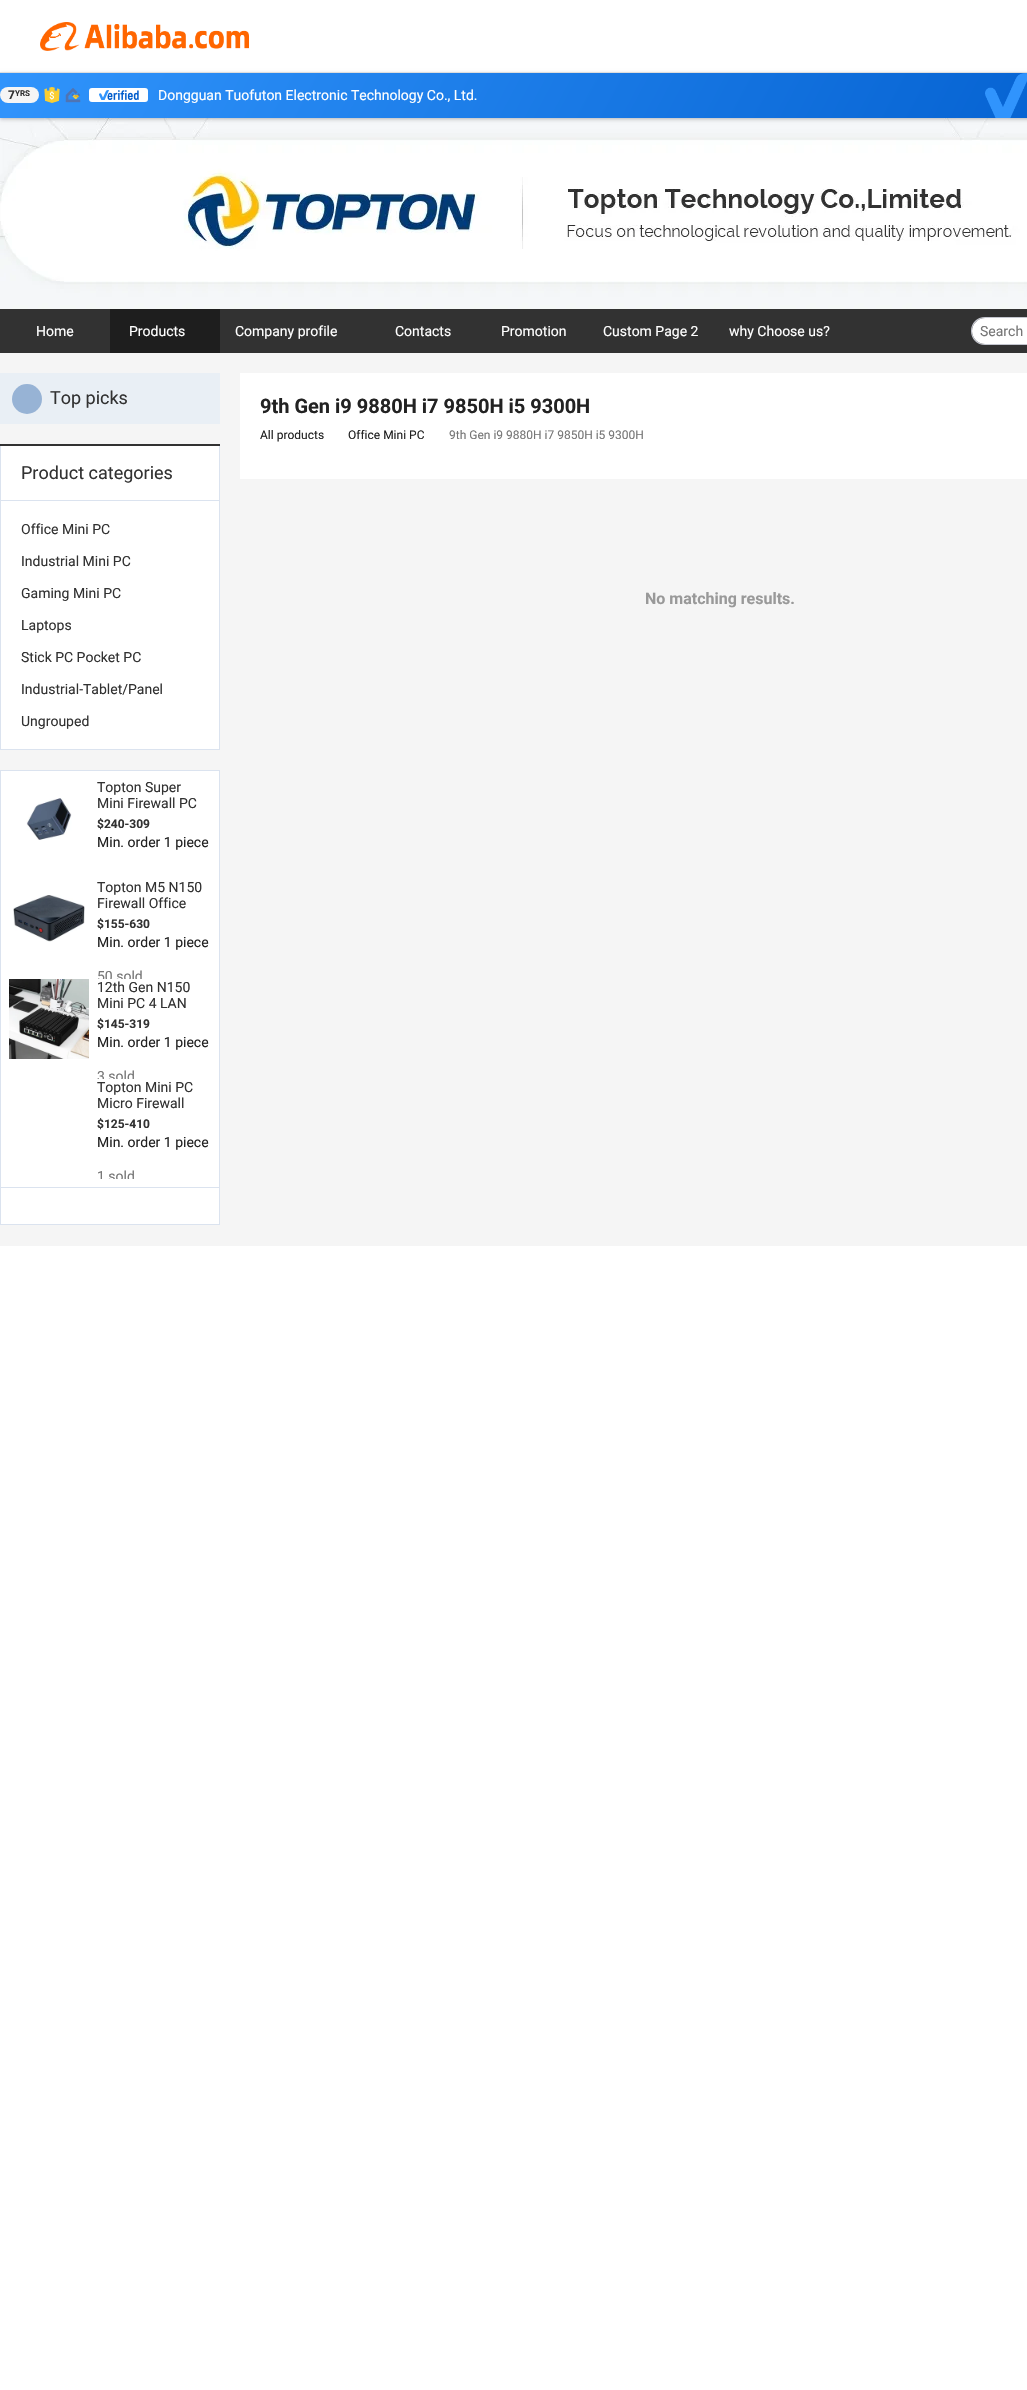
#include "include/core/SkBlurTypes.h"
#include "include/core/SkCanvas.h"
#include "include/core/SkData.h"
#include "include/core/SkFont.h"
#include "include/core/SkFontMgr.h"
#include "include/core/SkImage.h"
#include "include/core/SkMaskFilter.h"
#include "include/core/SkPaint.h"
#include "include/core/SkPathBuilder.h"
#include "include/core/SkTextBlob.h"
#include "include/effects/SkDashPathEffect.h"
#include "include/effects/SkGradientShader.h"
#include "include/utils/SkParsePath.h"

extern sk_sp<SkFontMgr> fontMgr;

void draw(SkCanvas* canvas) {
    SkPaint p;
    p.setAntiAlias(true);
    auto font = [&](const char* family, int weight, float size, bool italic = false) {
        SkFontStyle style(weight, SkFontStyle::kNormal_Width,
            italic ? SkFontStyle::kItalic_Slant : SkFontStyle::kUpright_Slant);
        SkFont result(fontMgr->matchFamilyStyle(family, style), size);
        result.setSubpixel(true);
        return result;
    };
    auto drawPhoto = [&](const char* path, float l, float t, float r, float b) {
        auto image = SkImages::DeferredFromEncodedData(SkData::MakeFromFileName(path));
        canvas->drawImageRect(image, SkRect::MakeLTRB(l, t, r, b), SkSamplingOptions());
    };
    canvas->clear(0xFFFFFFFF);
    drawPhoto("media/6.png", 0, 118, 1027, 309);
    p.setColor(0x47000000);
    p.setMaskFilter(SkMaskFilter::MakeBlur(kNormal_SkBlurStyle, 2));
    canvas->drawRect(SkRect::MakeLTRB(0, 74, 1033, 119), p);
    p.setMaskFilter(nullptr);
    p.setColor(0xFFDDDDDD);
    canvas->drawRect(SkRect::MakeLTRB(0, 72, 1027, 73), p);
    drawPhoto("media/1.png", 40, 22, 249, 51);
    {
        const SkColor colors[] = {0xFF3094FC, 0xFF005CCC};
        const float stops[] = {0, 1};
        const SkPoint ends[] = {{123, -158}, {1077, 349}};
        p.setShader(SkGradientShader::MakeLinear(ends, colors, stops, 2, SkTileMode::kClamp));
        p.setAlpha(255);
    }
    canvas->drawRect(SkRect::MakeLTRB(0, 73, 1027, 118), p);
    p.setShader(nullptr);
    p.setColor(0xFFF5F5F5);
    canvas->drawRoundRect(SkRect::MakeLTRB(0, 87, 39, 103), 8, 8, p);
    auto font1 = font("Roboto", 700, 12);
    p.setColor(0xFF323232);
    canvas->drawString("7", 8, 99, font1, p);
    auto font2 = font("Roboto", 700, 8);
    canvas->drawString("YRS", 15, 96, font2, p);
    drawPhoto("media/2.png", 44, 87, 60, 103);
    drawPhoto("media/3.png", 65, 88, 81, 103);
    p.setColor(0xFFFFFFFF);
    canvas->drawRoundRect(SkRect::MakeLTRB(89, 88, 148, 102), 3, 3, p);
    drawPhoto("media/4.png", 99, 90, 139, 100);
    auto font3 = font("Roboto", 400, 14);
    canvas->drawString("Dongguan Tuofuton Electronic Technology Co., Ltd.", 158, 100, font3, p);
    drawPhoto("media/5.png", 985, 73, 1027, 118);
    p.setColor(0xFF323232);
    canvas->drawRect(SkRect::MakeLTRB(0, 309, 1027, 353), p);
    p.setColor(0xFFFFFFFF);
    canvas->drawString("Home", 36, 336, font3, p);
    p.setColor(0xFF1E1E1E);
    canvas->drawRect(SkRect::MakeLTRB(110, 309, 220, 353), p);
    p.setColor(0xFFFFFFFF);
    {
        const struct { const char* s; float x, y; } items[] = {
            {"Products", 129, 336},
            {"Company profile", 235, 336},
            {"Contacts", 395, 336},
            {"Promotion", 501, 336},
            {"Custom Page 2", 603, 336},
            {"why Choose us?", 729, 336},
        };
        for (auto [s, x, y] : items) {
            canvas->drawString(s, x, y, font3, p);
        }
    }
    p.setColor(0xFFC4C6CF);
    canvas->drawPath(SkPathBuilder(SkPathFillType::kEvenOdd).moveTo(985, 317).lineTo(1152, 317).lineTo(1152, 345).lineTo(985, 345).cubicTo(977, 345, 971, 339, 971, 331).cubicTo(971, 323, 977, 317, 985, 317).close().moveTo(985, 318).lineTo(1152, 318).lineTo(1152, 344).lineTo(985, 344).cubicTo(978, 344, 972, 338, 972, 331).cubicTo(972, 324, 978, 318, 985, 318).close().detach(), p);
    p.setColor(0xFFFFFFFF);
    canvas->drawPath(SkPathBuilder().moveTo(985, 318).lineTo(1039.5f, 318).cubicTo(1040, 318, 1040, 318, 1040, 318.5f).lineTo(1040, 343.5f).cubicTo(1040, 344, 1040, 344, 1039.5f, 344).lineTo(985, 344).cubicTo(978, 344, 972, 338, 972, 331).cubicTo(972, 324, 978, 318, 985, 318).close().detach(), p);
    p.setColor(0xFF767676);
    canvas->drawString("Search", 980, 336, font3, p);
    p.setColor(0xFFF5F5F5);
    canvas->drawRect(SkRect::MakeLTRB(0, 353, 1027, 1246), p);
    p.setColor(0xFFE9EFF5);
    canvas->drawRect(SkRect::MakeLTRB(0, 373, 220, 424), p);
    p.setColor(0xFF97B3D5);
    canvas->drawCircle(27, 399, 15, p);
    auto font4 = font("Roboto", 400, 18);
    p.setColor(0xFF323232);
    canvas->drawString("Top picks", 50, 404, font4, p);
    {
        const struct { float l, t, r, b; SkColor color; } items[] = {
            {1, 446, 219, 749, 0xFFFFFFFF},
            {0, 444, 220, 446, 0xFF323232},
            {219, 446, 220, 750, 0xFFDBE3EF},
            {0, 749, 220, 750, 0xFFDBE3EF},
            {0, 446, 1, 750, 0xFFDBE3EF},
            {1, 500, 219, 501, 0xFFDBE3EF},
        };
        for (auto [l, t, r, b, color] : items) {
            p.setColor(color);
            canvas->drawRect(SkRect::MakeLTRB(l, t, r, b), p);
        }
    }
    p.setColor(0xFF323232);
    canvas->drawString("Product categories", 21, 479, font4, p);
    {
        const struct { const char* s; float x, y; } items[] = {
            {"Office Mini PC", 21, 534},
            {"Industrial Mini PC", 21, 566},
            {"Gaming Mini PC", 21, 598},
            {"Laptops", 21, 630},
            {"Stick PC Pocket PC", 21, 662},
            {"Industrial-Tablet/Panel", 21, 694},
            {"Ungrouped", 21, 726},
        };
        for (auto [s, x, y] : items) {
            canvas->drawString(s, x, y, font3, p);
        }
    }
    p.setColor(0xFFFFFFFF);
    canvas->drawRect(SkRect::MakeLTRB(0.5f, 770.5f, 219.5f, 1224.5f), p);
    p.setStyle(SkPaint::kStroke_Style);
    p.setStrokeWidth(1);
    p.setColor(0xFFDBE3EF);
    canvas->drawRect(SkRect::MakeLTRB(0.5f, 770.5f, 219.5f, 1224.5f), p);
    drawPhoto("media/7.png", 26, 798, 72, 840);
    p.setStyle(SkPaint::kFill_Style);
    p.setColor(0xFF323232);
    canvas->drawString("Topton Super", 97, 792, font3, p);
    canvas->drawString("Mini Firewall PC", 97, 808, font3, p);
    canvas->drawString("$240-309", 97, 828, font1, p);
    p.setColor(0xFF222222);
    canvas->drawString("Min. order 1 piece", 97, 847, font3, p);
    drawPhoto("media/8.png", 13, 895, 85, 942);
    p.setColor(0xFF323232);
    canvas->drawString("Topton M5 N150", 97, 892, font3, p);
    canvas->drawString("Firewall Office", 97, 908, font3, p);
    canvas->drawString("$155-630", 97, 928, font1, p);
    p.setColor(0xFF222222);
    canvas->drawString("Min. order 1 piece", 97, 947, font3, p);
    canvas->save();
    canvas->clipRect(SkRect::MakeLTRB(97, 879, 211, 979));
    p.setColor(0xFF767676);
    canvas->drawString("50 sold", 97, 981, font3, p);
    canvas->restore();
    drawPhoto("media/9.png", 9, 979, 89, 1059);
    p.setColor(0xFF323232);
    canvas->drawString("12th Gen N150", 97, 992, font3, p);
    canvas->drawString("Mini PC 4 LAN", 97, 1008, font3, p);
    canvas->drawString("$145-319", 97, 1028, font1, p);
    p.setColor(0xFF222222);
    canvas->drawString("Min. order 1 piece", 97, 1047, font3, p);
    canvas->save();
    canvas->clipRect(SkRect::MakeLTRB(97, 979, 211, 1079));
    p.setColor(0xFF767676);
    canvas->drawString("3 sold", 97, 1081, font3, p);
    canvas->restore();
    p.setColor(0xFF323232);
    canvas->drawString("Topton Mini PC", 97, 1092, font3, p);
    canvas->drawString("Micro Firewall", 97, 1108, font3, p);
    canvas->drawString("$125-410", 97, 1128, font1, p);
    p.setColor(0xFF222222);
    canvas->drawString("Min. order 1 piece", 97, 1147, font3, p);
    canvas->save();
    canvas->clipRect(SkRect::MakeLTRB(97, 1079, 211, 1179));
    p.setColor(0xFF767676);
    canvas->drawString("1 sold", 97, 1181, font3, p);
    canvas->restore();
    p.setColor(0xFFDBE3EF);
    canvas->drawRect(SkRect::MakeLTRB(1, 1187, 219, 1188), p);
    p.setColor(0xFFFFFFFF);
    canvas->drawRect(SkRect::MakeLTRB(240, 373, 1027, 479), p);
    auto font5 = font("Roboto", 700, 20);
    p.setColor(0xFF222222);
    canvas->drawString("9th Gen i9 9880H i7 9850H i5 9300H", 260, 413, font5, p);
    auto font6 = font("Roboto", 400, 12);
    canvas->drawString("All products", 260, 439, font6, p);
    canvas->drawString("Office Mini PC", 348, 439, font6, p);
    p.setColor(0xFF767676);
    canvas->drawString("9th Gen i9 9880H i7 9850H i5 9300H", 449, 439, font6, p);
    auto font7 = font("Roboto", 700, 16);
    p.setColor(0xFF999999);
    canvas->drawString("No matching results.", 645, 604, font7, p);
}
